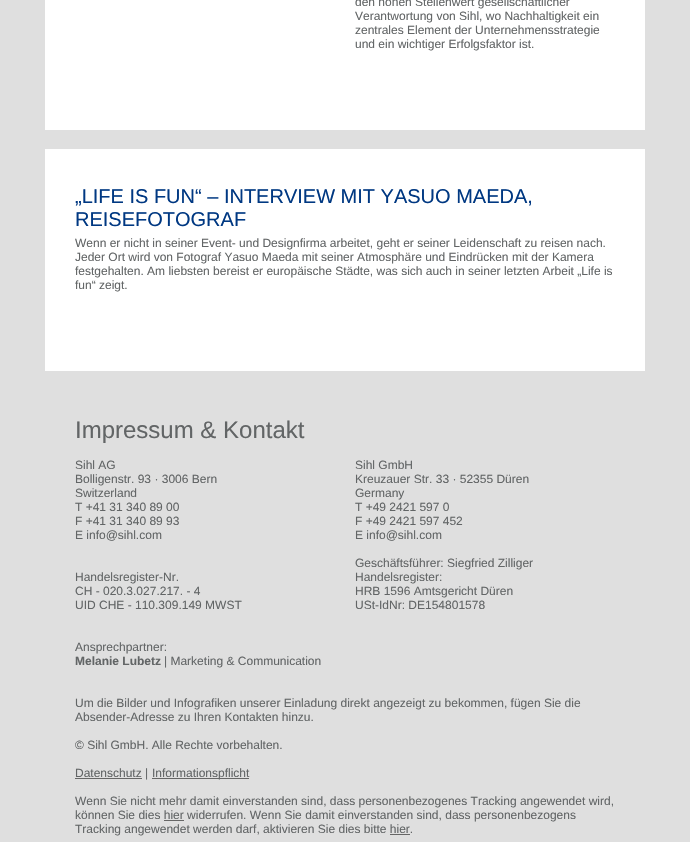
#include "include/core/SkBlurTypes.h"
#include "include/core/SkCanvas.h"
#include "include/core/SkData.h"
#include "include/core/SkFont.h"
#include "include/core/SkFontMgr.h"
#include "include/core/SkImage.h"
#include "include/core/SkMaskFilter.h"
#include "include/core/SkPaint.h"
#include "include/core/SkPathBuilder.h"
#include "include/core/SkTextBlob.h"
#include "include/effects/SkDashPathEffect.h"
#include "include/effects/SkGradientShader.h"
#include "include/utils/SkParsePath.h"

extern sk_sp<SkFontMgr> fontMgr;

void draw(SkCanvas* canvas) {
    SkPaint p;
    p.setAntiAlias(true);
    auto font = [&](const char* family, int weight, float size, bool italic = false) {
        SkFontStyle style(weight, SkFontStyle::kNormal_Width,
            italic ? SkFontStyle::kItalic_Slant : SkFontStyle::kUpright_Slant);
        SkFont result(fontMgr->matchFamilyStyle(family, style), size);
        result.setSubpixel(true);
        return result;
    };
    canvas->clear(0xFFDFDFDF);
    p.setColor(0xFFFFFFFF);
    canvas->drawRect(SkRect::MakeLTRB(45, 0, 645, 371), p);
    auto font1 = font("Liberation Sans", 400, 12);
    p.setColor(0xFF626566);
    {
        const struct { const char* s; float x, y; } items[] = {
            {"den hohen Stellenwert gesellschaftlicher", 355, 6},
            {"Verantwortung von Sihl, wo Nachhaltigkeit ein", 355, 20},
            {"zentrales Element der Unternehmensstrategie", 355, 34},
            {"und ein wichtiger Erfolgsfaktor ist.", 355, 48},
        };
        for (auto [s, x, y] : items) {
            canvas->drawString(s, x, y, font1, p);
        }
    }
    p.setColor(0xFFDFDFDF);
    canvas->drawRect(SkRect::MakeLTRB(45, 130, 645, 149), p);
    auto font2 = font("Liberation Sans", 400, 20);
    p.setColor(0xFF003882);
    canvas->drawString("„LIFE IS FUN“ – INTERVIEW MIT YASUO MAEDA,", 75, 203, font2, p);
    canvas->drawString("REISEFOTOGRAF", 75, 226, font2, p);
    p.setColor(0xFF626566);
    {
        const struct { const char* s; float x, y; } items[] = {
            {"Wenn er nicht in seiner Event- und Designfirma arbeitet, geht er seiner Leidenschaft zu reisen nach.", 75, 247},
            {"Jeder Ort wird von Fotograf Yasuo Maeda mit seiner Atmosphäre und Eindrücken mit der Kamera", 75, 261},
            {"festgehalten. Am liebsten bereist er europäische Städte, was sich auch in seiner letzten Arbeit „Life is", 75, 275},
            {"fun“ zeigt.", 75, 289},
        };
        for (auto [s, x, y] : items) {
            canvas->drawString(s, x, y, font1, p);
        }
    }
    auto font3 = font("Liberation Sans", 400, 24);
    canvas->drawString("Impressum & Kontakt", 75, 438, font3, p);
    {
        const struct { const char* s; float x, y; } items[] = {
            {"Sihl AG", 75, 469},
            {"Bolligenstr. 93 · 3006 Bern", 75, 483},
            {"Switzerland", 75, 497},
            {"T +41 31 340 89 00", 75, 511},
            {"F +41 31 340 89 93", 75, 525},
            {"E info@sihl.com", 75, 539},
            {"Handelsregister-Nr.", 75, 581},
            {"CH - 020.3.027.217. - 4", 75, 595},
            {"UID CHE - 110.309.149 MWST", 75, 609},
            {"Sihl GmbH", 355, 469},
            {"Kreuzauer Str. 33 · 52355 Düren", 355, 483},
            {"Germany", 355, 497},
            {"T +49 2421 597 0", 355, 511},
            {"F +49 2421 597 452", 355, 525},
            {"E info@sihl.com", 355, 539},
            {"Geschäftsführer: Siegfried Zilliger", 355, 567},
            {"Handelsregister:", 355, 581},
            {"HRB 1596 Amtsgericht Düren", 355, 595},
            {"USt-IdNr: DE154801578", 355, 609},
            {"Ansprechpartner:", 75, 651},
        };
        for (auto [s, x, y] : items) {
            canvas->drawString(s, x, y, font1, p);
        }
    }
    auto font4 = font("Liberation Sans", 700, 12);
    canvas->drawString("Melanie Lubetz", 75, 665, font4, p);
    {
        const struct { const char* s; float x, y; } items[] = {
            {"| Marketing & Communication", 164, 665},
            {"Um die Bilder und Infografiken unserer Einladung direkt angezeigt zu bekommen, fügen Sie die", 75, 707},
            {"Absender-Adresse zu Ihren Kontakten hinzu.", 75, 721},
            {"© Sihl GmbH. Alle Rechte vorbehalten.", 75, 749},
        };
        for (auto [s, x, y] : items) {
            canvas->drawString(s, x, y, font1, p);
        }
    }
    p.setColor(0xFF666666);
    canvas->drawRect(SkRect::MakeLTRB(75, 778, 142, 779), p);
    p.setColor(0xFF626566);
    canvas->drawString("Datenschutz |", 75, 777, font1, p);
    p.setColor(0xFF666666);
    canvas->drawRect(SkRect::MakeLTRB(152, 778, 249, 779), p);
    p.setColor(0xFF626566);
    {
        const struct { const char* s; float x, y; } items[] = {
            {"Informationspflicht", 152, 777},
            {"Wenn Sie nicht mehr damit einverstanden sind, dass personenbezogenes Tracking angewendet wird,", 75, 805},
            {"können Sie dies hier widerrufen. Wenn Sie damit einverstanden sind, dass personenbezogens", 75, 819},
        };
        for (auto [s, x, y] : items) {
            canvas->drawString(s, x, y, font1, p);
        }
    }
    p.setColor(0xFF666666);
    canvas->drawRect(SkRect::MakeLTRB(164, 820, 184, 821), p);
    p.setColor(0xFF626566);
    canvas->drawString("Tracking angewendet werden darf, aktivieren Sie dies bitte hier.", 75, 833, font1, p);
    p.setColor(0xFF666666);
    canvas->drawRect(SkRect::MakeLTRB(390, 834, 410, 835), p);
}
